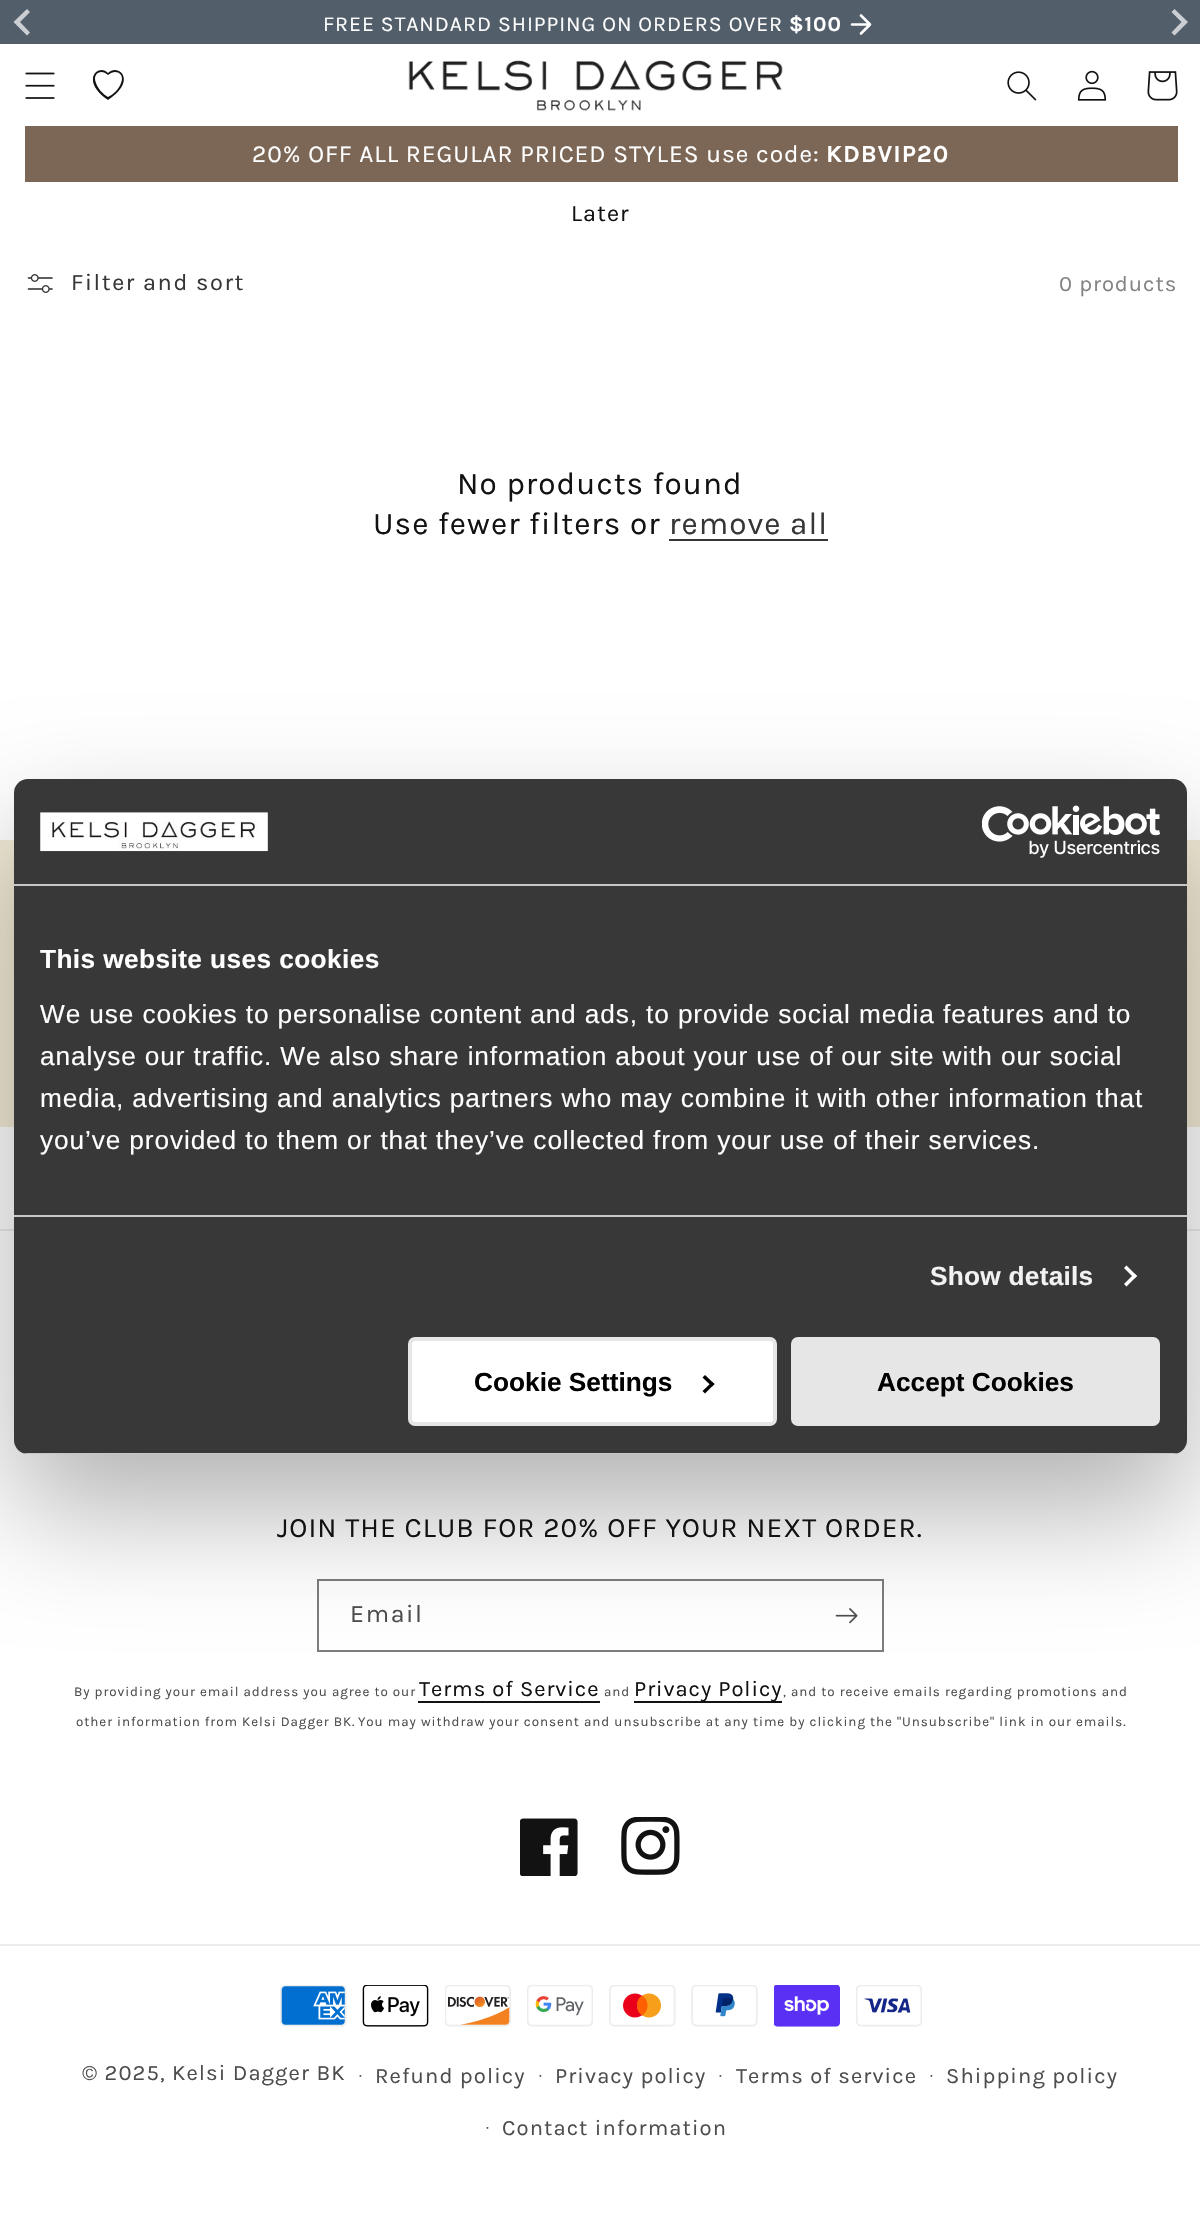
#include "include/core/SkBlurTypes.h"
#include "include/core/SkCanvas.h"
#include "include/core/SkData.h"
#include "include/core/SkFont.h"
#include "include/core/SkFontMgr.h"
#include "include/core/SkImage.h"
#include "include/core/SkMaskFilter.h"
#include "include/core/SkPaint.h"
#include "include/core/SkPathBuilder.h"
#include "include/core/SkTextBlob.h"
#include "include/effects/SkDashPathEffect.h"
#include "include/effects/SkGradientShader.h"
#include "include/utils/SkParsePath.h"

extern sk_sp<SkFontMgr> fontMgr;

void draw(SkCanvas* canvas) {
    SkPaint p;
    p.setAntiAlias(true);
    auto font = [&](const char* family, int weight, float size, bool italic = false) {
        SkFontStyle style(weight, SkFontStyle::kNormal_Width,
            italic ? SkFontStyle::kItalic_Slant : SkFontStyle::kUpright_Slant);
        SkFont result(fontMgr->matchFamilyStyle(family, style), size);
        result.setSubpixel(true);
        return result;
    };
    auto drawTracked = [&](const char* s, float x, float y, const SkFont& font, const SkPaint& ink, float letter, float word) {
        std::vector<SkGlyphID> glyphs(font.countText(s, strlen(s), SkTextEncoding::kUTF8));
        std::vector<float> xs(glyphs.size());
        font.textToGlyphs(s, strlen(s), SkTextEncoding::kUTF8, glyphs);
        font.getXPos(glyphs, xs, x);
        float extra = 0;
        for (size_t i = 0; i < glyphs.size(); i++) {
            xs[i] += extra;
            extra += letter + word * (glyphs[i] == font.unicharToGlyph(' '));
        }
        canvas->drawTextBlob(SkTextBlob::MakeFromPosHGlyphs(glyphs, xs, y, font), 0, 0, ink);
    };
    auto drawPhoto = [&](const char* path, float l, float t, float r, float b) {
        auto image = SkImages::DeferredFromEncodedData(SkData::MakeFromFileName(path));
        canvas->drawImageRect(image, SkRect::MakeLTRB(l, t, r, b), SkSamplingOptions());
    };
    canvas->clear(0xFFFFFFFF);
    p.setColor(0xFF535E6B);
    canvas->drawRect(SkRect::MakeLTRB(0, 0, 1200, 44), p);
    p.setColor(0xFFCBCFD3);
    canvas->drawPath(SkPathBuilder().moveTo(27, 9).lineTo(30, 12).lineTo(20, 22).lineTo(30, 32.5f).lineTo(27, 35.5f).lineTo(13.5f, 22).close().detach(), p);
    canvas->drawPath(SkPathBuilder().moveTo(1174.5f, 9).lineTo(1171.5f, 12).lineTo(1181.5f, 22).lineTo(1171.5f, 32.5f).lineTo(1174.5f, 35.5f).lineTo(1188, 22).close().detach(), p);
    auto font1 = font("Karla", 400, 21.25f);
    p.setColor(0xFFFFFFFF);
    drawTracked("FREE STANDARD SHIPPING ON ORDERS OVER", 323, 31, font1, p, 0.95f, 0);
    auto font2 = font("Karla", 700, 21.25f);
    drawTracked("$100", 789, 31, font2, p, 0.95f, 0);
    p.setStyle(SkPaint::kStroke_Style);
    p.setStrokeWidth(2.6f);
    p.setStrokeCap(SkPaint::kRound_Cap);
    p.setStrokeJoin(SkPaint::kRound_Join);
    canvas->drawPath(SkPathBuilder().moveTo(852, 24.5f).lineTo(869, 24.5f).moveTo(861, 15.5f).lineTo(870, 24.5f).lineTo(861, 33.5f).detach(), p);
    drawPhoto("media/1.png", 25, 72, 55, 99);
    canvas->save();
    canvas->clipRect(SkRect::MakeLTRB(93, 70, 124, 102));
    p.setStyle(SkPaint::kFill_Style);
    p.setColor(0xFF121212);
    canvas->drawPath(SkPathBuilder().moveTo(108, 75).cubicTo(101, 68, 92, 74, 96, 83).cubicTo(98, 89, 103, 94, 108, 97).cubicTo(114, 94, 119, 89, 121, 83).cubicTo(125, 74, 116, 68, 108, 75).close().moveTo(108, 100).cubicTo(79, 80, 99, 63, 108, 73).cubicTo(118, 63, 138, 80, 108, 100).close().detach(), p);
    canvas->restore();
    drawPhoto("media/2.png", 408, 59, 783, 111);
    drawPhoto("media/3.png", 1007, 71, 1037, 101);
    drawPhoto("media/4.png", 1077, 70, 1107, 101);
    drawPhoto("media/5.png", 1147, 71, 1178, 101);
    p.setColor(0xFF7C6756);
    canvas->drawRect(SkRect::MakeLTRB(25, 126, 1178, 182), p);
    auto font3 = font("Karla", 400, 24.5f);
    p.setColor(0xFFFFFFFF);
    drawTracked("20% OFF ALL REGULAR PRICED STYLES use code:", 252, 162, font3, p, 0.95f, 0);
    auto font4 = font("Karla", 700, 24.5f);
    drawTracked("KDBVIP20", 826, 162, font4, p, 0.95f, 0);
    auto font5 = font("Karla", 400, 23.5f);
    p.setColor(0xFF121212);
    drawTracked("Later", 571, 221, font5, p, 1.05f, 0);
    drawPhoto("media/6.png", 27, 274, 53, 293);
    p.setColor(0xFF363636);
    drawTracked("Filter and sort", 71, 290, font5, p, 1.6f, 0);
    auto font6 = font("Karla", 400, 22);
    p.setColor(0xFF838383);
    drawTracked("0 products", 1059, 291, font6, p, 0.95f, 0);
    auto font7 = font("Karla", 400, 31.5f);
    p.setColor(0xFF121212);
    drawTracked("No products found", 457, 494, font7, p, 1.05f, 0);
    drawTracked("Use fewer filters or", 373, 534, font7, p, 1.05f, 0);
    p.setColor(0xFF363636);
    drawTracked("remove all", 669, 534, font7, p, 1.05f, 0);
    {
        const struct { float l, t, r, b; SkColor color; } items[] = {
            {669, 539, 828, 541, 0xFF363636},
            {0, 840, 1200, 1127, 0xFFF3EBD7},
            {0, 1229, 1200, 1231, 0xFFECECEC},
        };
        for (auto [l, t, r, b, color] : items) {
            p.setColor(color);
            canvas->drawRect(SkRect::MakeLTRB(l, t, r, b), p);
        }
    }
    p.setStyle(SkPaint::kStroke_Style);
    p.setStrokeWidth(2);
    p.setStrokeCap(SkPaint::kButt_Cap);
    p.setStrokeJoin(SkPaint::kMiter_Join);
    p.setColor(0xFF7D7D7D);
    canvas->drawRect(SkRect::MakeLTRB(318, 1580, 883, 1651), p);
    drawPhoto("media/9.png", 835, 1608, 858, 1624);
    p.setStyle(SkPaint::kFill_Style);
    p.setColor(0x4D000000);
    p.setMaskFilter(SkMaskFilter::MakeBlur(kNormal_SkBlurStyle, 59.5f));
    canvas->drawRoundRect(SkRect::MakeLTRB(14, 835, 1187, 1510), 14, 14, p);
    p.setMaskFilter(nullptr);
    p.setColor(0xFF383838);
    canvas->drawRoundRect(SkRect::MakeLTRB(14, 779, 1187, 1454), 14, 14, p);
    p.setColor(0xFFC7C7C7);
    canvas->drawRect(SkRect::MakeLTRB(14, 884, 1187, 886), p);
    drawPhoto("media/7.png", 40, 812, 268, 852);
    drawPhoto("media/8.png", 982, 805, 1160, 858);
    canvas->drawRect(SkRect::MakeLTRB(14, 1215, 1187, 1217), p);
    auto font8 = font("Liberation Sans", 700, 26.25f);
    p.setColor(0xFFFFFFFF);
    drawTracked("This website uses cookies", 40, 968, font8, p, 0.4f, 0);
    auto font9 = font("Liberation Sans", 400, 26.25f);
    {
        const struct { const char* s; float x, y; } items[] = {
            {"We use cookies to personalise content and ads, to provide social media features and to", 40, 1023},
            {"analyse our traffic. We also share information about your use of our site with our social", 40, 1065},
            {"media, advertising and analytics partners who may combine it with other information that", 40, 1107},
            {"you’ve provided to them or that they’ve collected from your use of their services.", 40, 1149},
        };
        for (auto [s, x, y] : items) {
            drawTracked(s, x, y, font9, p, 0.88f, 0);
        }
    }
    p.setColor(0xFFF2F2F2);
    drawTracked("Show details", 930, 1285, font8, p, 0.25f, 0);
    p.setColor(0xFFFFFFFF);
    canvas->drawPath(SkPathBuilder().moveTo(1126.5f, 1265.5f).lineTo(1137, 1276).lineTo(1134.5f, 1278.5f).lineTo(1124, 1268).close().detach(), p);
    canvas->drawPath(SkPathBuilder().moveTo(1134.5f, 1273.5f).lineTo(1137, 1276).lineTo(1126.5f, 1286.5f).lineTo(1124, 1284).close().detach(), p);
    canvas->save();
    canvas->clipPath(SkPathBuilder().moveTo(28, 779).lineTo(1173, 779).cubicTo(1180.5f, 779, 1187, 785.5f, 1187, 793).lineTo(1187, 1440).cubicTo(1187, 1447.5f, 1180.5f, 1454, 1173, 1454).lineTo(28, 1454).cubicTo(20.5f, 1454, 14, 1447.5f, 14, 1440).lineTo(14, 793).cubicTo(14, 785.5f, 20.5f, 779, 28, 779).close().detach(), true);
    p.setColor(0xFFC7C7C7);
    canvas->drawRect(SkRect::MakeLTRB(23, 1453, 1178, 1454), p);
    canvas->restore();
    p.setColor(0xFFFFFFFF);
    canvas->drawRoundRect(SkRect::MakeLTRB(410, 1339, 775, 1424), 5, 5, p);
    p.setStyle(SkPaint::kStroke_Style);
    p.setStrokeWidth(4);
    p.setColor(0xFFE6E6E6);
    canvas->drawRoundRect(SkRect::MakeLTRB(410, 1339, 775, 1424), 5, 5, p);
    p.setStyle(SkPaint::kFill_Style);
    p.setColor(0xFF000000);
    canvas->drawString("Cookie Settings", 474, 1391, font8, p);
    canvas->drawPath(SkPathBuilder().moveTo(705, 1375).lineTo(714.5f, 1384).lineTo(712, 1386.5f).lineTo(702.5f, 1377.5f).close().detach(), p);
    canvas->drawPath(SkPathBuilder().moveTo(712, 1382).lineTo(714.5f, 1384).lineTo(705, 1393.5f).lineTo(702.5f, 1391).close().detach(), p);
    p.setColor(0xFFE6E6E6);
    canvas->drawRoundRect(SkRect::MakeLTRB(793, 1339, 1158, 1424), 5, 5, p);
    p.setStyle(SkPaint::kStroke_Style);
    canvas->drawRoundRect(SkRect::MakeLTRB(793, 1339, 1158, 1424), 5, 5, p);
    p.setStyle(SkPaint::kFill_Style);
    p.setColor(0xFF000000);
    canvas->drawString("Accept Cookies", 877, 1391, font8, p);
    auto font10 = font("Karla", 400, 28);
    p.setColor(0xFF121212);
    drawTracked("JOIN THE CLUB FOR 20% OFF YOUR NEXT ORDER.", 277, 1537, font10, p, 1.05f, 0);
    auto font11 = font("Karla", 400, 25);
    p.setColor(0xFF4D4D4D);
    drawTracked("Email", 350, 1622, font11, p, 1.6f, 0);
    auto font12 = font("Karla", 400, 13.4f);
    drawTracked("By providing your email address you agree to our", 74, 1696, font12, p, 0.95f, 0);
    p.setColor(0xFF121212);
    drawTracked("Terms of Service", 419, 1696, font6, p, 0.95f, 0);
    canvas->drawRect(SkRect::MakeLTRB(418, 1701, 600, 1703), p);
    p.setColor(0xFF4D4D4D);
    drawTracked("and", 604, 1696, font12, p, 0.95f, 0);
    p.setColor(0xFF121212);
    canvas->drawRect(SkRect::MakeLTRB(634, 1701, 782, 1703), p);
    drawTracked("Privacy Policy", 634, 1696, font6, p, 0.95f, 0);
    p.setColor(0xFF4D4D4D);
    {
        const struct { const char* s; float x, y; } items[] = {
            {", and to receive emails regarding promotions and", 783, 1696},
            {"other information from Kelsi Dagger BK.", 76, 1726},
            {"You may withdraw your consent and unsubscribe at any time by clicking the \"Unsubscribe\" link in our emails.", 358, 1726},
        };
        for (auto [s, x, y] : items) {
            drawTracked(s, x, y, font12, p, 0.95f, 0);
        }
    }
    drawPhoto("media/10.png", 520, 1818, 578, 1876);
    drawPhoto("media/11.png", 621, 1817, 680, 1875);
    p.setColor(0xFFECECEC);
    canvas->drawRect(SkRect::MakeLTRB(0, 1944, 1200, 1946), p);
    drawPhoto("media/12.png", 280, 1985, 347, 2027);
    drawPhoto("media/13.png", 362, 1985, 429, 2027);
    drawPhoto("media/14.png", 445, 1985, 511, 2027);
    drawPhoto("media/15.png", 527, 1985, 593, 2027);
    drawPhoto("media/16.png", 609, 1985, 676, 2027);
    drawPhoto("media/17.png", 691, 1985, 758, 2027);
    drawPhoto("media/18.png", 774, 1985, 840, 2027);
    drawPhoto("media/19.png", 856, 1985, 922, 2027);
    p.setColor(0xFF4D4D4D);
    drawTracked("© 2025, Kelsi Dagger BK", 82, 2080, font6, p, 1.1f, 0);
    auto font13 = font("Karla", 400, 16);
    drawTracked("·", 359, 2080, font13, p, 1.1f, 0);
    drawTracked("Refund policy", 375, 2083, font6, p, 1.1f, 0);
    drawTracked("·", 539, 2080, font13, p, 1.1f, 0);
    drawTracked("Privacy policy", 555, 2083, font6, p, 1.1f, 0);
    drawTracked("·", 719, 2080, font13, p, 1.1f, 0);
    drawTracked("Terms of service", 736, 2083, font6, p, 1.1f, 0);
    drawTracked("·", 930, 2080, font13, p, 1.1f, 0);
    drawTracked("Shipping policy", 946, 2083, font6, p, 1.1f, 0);
    drawTracked("·", 486, 2132, font13, p, 1.1f, 0);
    drawTracked("Contact information", 502, 2135, font6, p, 1.1f, 0);
}
